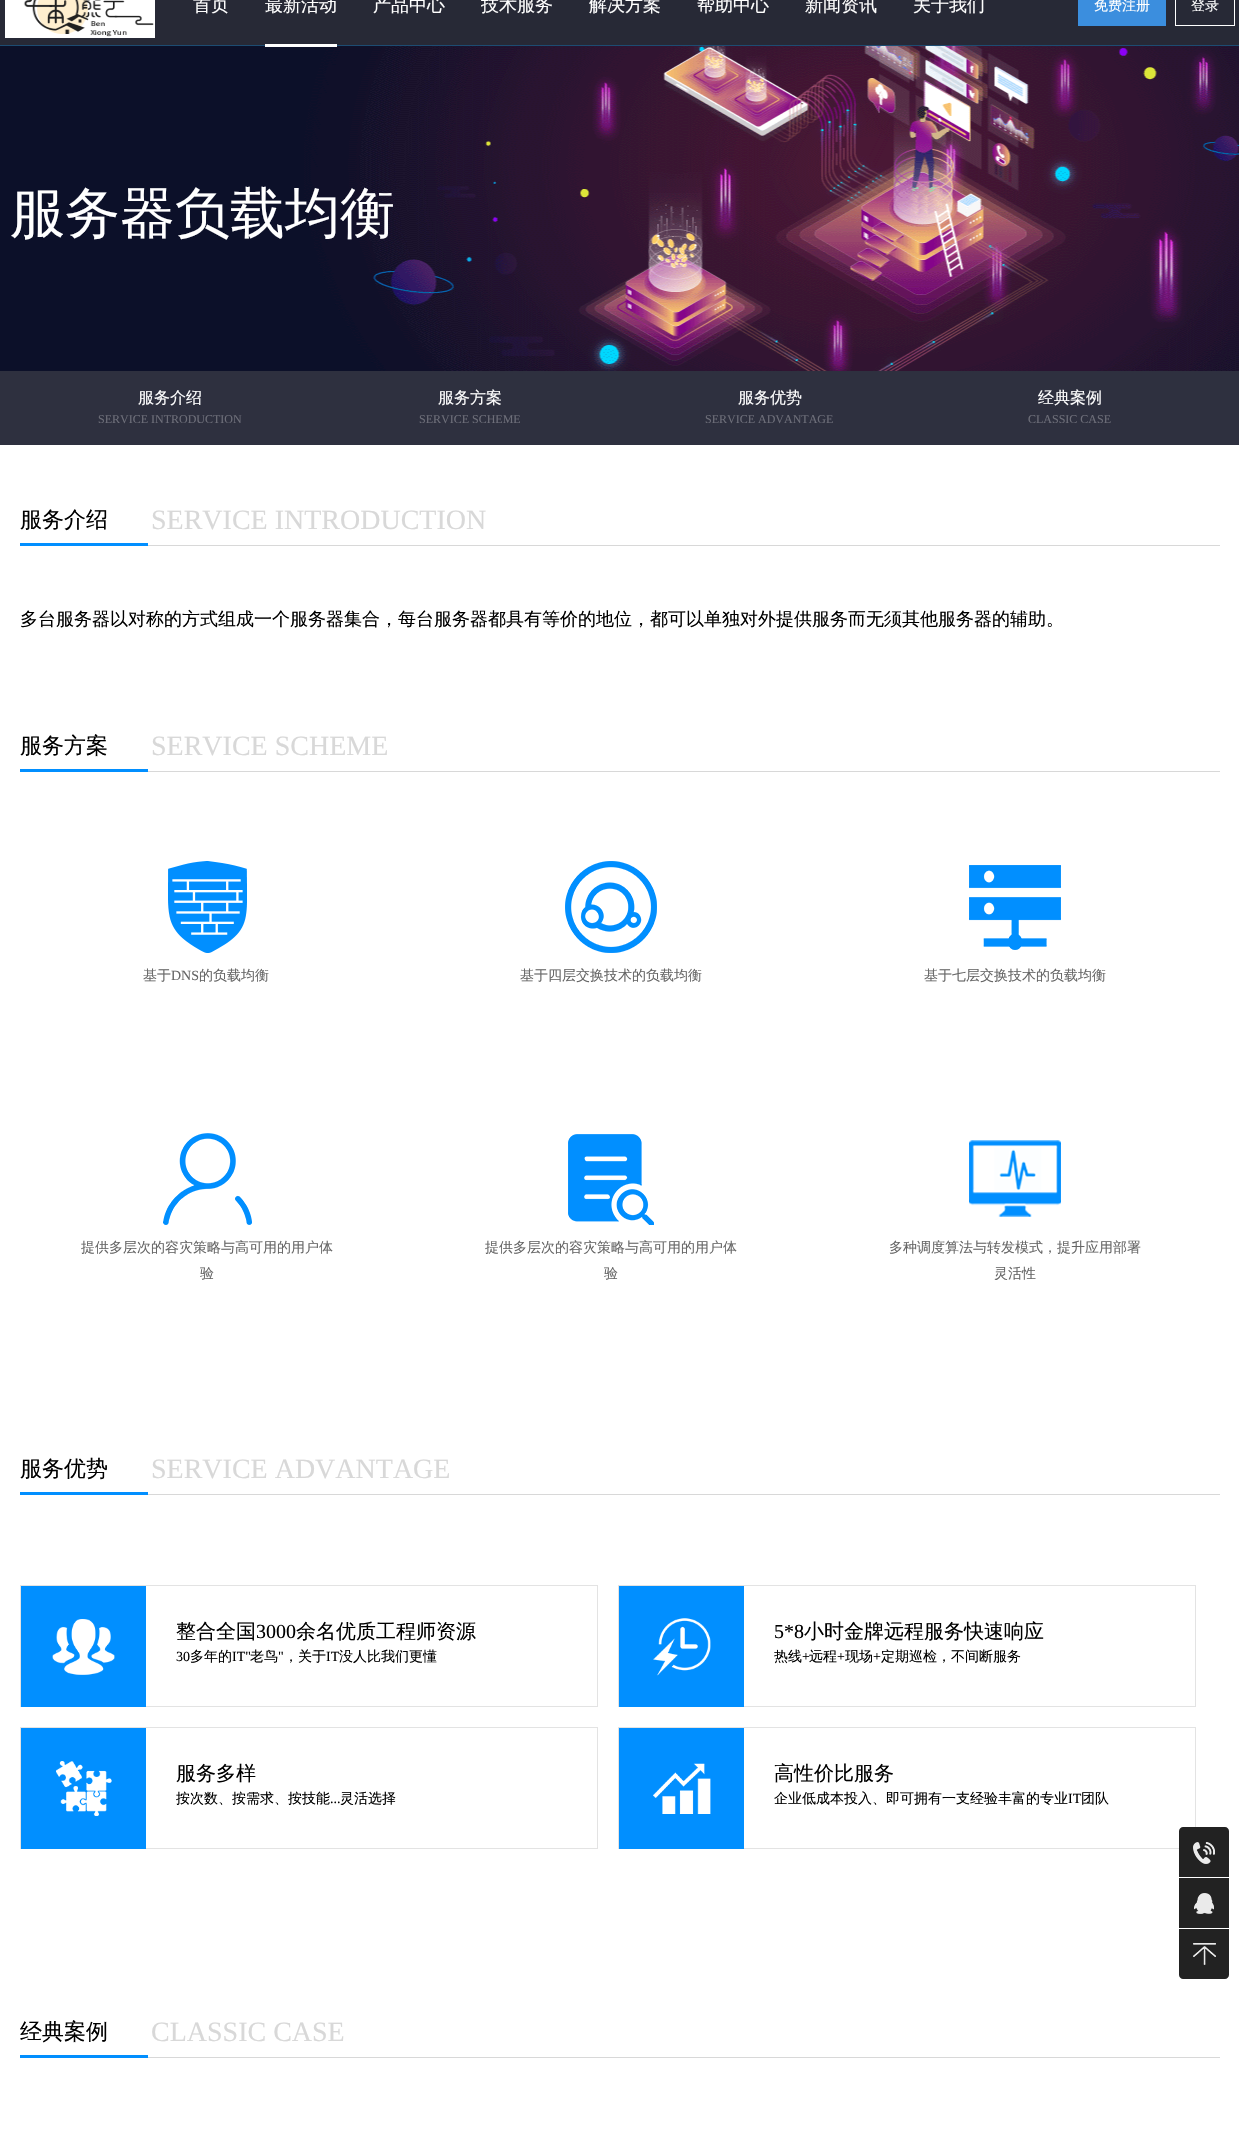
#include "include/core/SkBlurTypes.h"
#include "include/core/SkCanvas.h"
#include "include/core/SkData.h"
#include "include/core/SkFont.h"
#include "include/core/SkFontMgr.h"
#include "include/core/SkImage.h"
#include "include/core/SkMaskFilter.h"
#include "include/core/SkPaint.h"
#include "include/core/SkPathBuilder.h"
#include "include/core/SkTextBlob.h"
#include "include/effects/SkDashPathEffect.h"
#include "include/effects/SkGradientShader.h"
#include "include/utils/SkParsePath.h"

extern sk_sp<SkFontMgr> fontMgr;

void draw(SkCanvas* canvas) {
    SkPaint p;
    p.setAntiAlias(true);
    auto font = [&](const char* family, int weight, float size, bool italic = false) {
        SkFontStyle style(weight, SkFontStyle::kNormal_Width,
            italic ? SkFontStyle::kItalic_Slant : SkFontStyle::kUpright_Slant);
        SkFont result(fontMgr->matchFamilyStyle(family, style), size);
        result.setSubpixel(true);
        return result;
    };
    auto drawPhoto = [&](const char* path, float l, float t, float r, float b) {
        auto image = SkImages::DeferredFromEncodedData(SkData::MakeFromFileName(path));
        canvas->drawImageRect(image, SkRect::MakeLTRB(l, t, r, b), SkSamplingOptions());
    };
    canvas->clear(0xFFFFFFFF);
    p.setColor(0xFF272936);
    canvas->drawRect(SkRect::MakeLTRB(0, 0, 1239, 45), p);
    p.setColor(0xFF1D4C72);
    canvas->drawRect(SkRect::MakeLTRB(0, 45, 1239, 46), p);
    drawPhoto("media/1.png", 5, 0, 155, 38);
    auto font1 = font("WenQuanYi Zen Hei", 500, 18);
    p.setColor(0xFFFFFFFF);
    canvas->drawString("首页", 193, 11, font1, p);
    canvas->drawString("最新活动", 265, 11, font1, p);
    drawPhoto("media/2.png", 0, 46, 1239, 371);
    canvas->drawRect(SkRect::MakeLTRB(265, 44, 337, 47), p);
    {
        const struct { const char* s; float x, y; } items[] = {
            {"产品中心", 373, 11},
            {"技术服务", 481, 11},
            {"解决方案", 589, 11},
            {"帮助中心", 697, 11},
            {"新闻资讯", 805, 11},
            {"关于我们", 913, 11},
        };
        for (auto [s, x, y] : items) {
            canvas->drawString(s, x, y, font1, p);
        }
    }
    p.setColor(0xFF3B8EDE);
    canvas->drawRect(SkRect::MakeLTRB(1078, 0, 1166, 26), p);
    auto font2 = font("WenQuanYi Zen Hei", 500, 14);
    p.setColor(0xFFFFFFFF);
    canvas->drawString("免费注册", 1094, 10, font2, p);
    p.setStyle(SkPaint::kStroke_Style);
    p.setStrokeWidth(1);
    canvas->drawRect(SkRect::MakeLTRB(1175.5f, -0.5f, 1234.5f, 25.5f), p);
    p.setStyle(SkPaint::kFill_Style);
    canvas->drawString("登录", 1191, 10, font2, p);
    auto font3 = font("WenQuanYi Zen Hei", 500, 55);
    canvas->drawString("服务器负载均衡", 10, 232, font3, p);
    p.setColor(0xFF2E303F);
    canvas->drawRect(SkRect::MakeLTRB(0, 371, 1239, 445), p);
    auto font4 = font("WenQuanYi Zen Hei", 500, 16);
    p.setColor(0xFFFFFFFF);
    canvas->drawString("服务介绍", 138, 403, font4, p);
    auto font5 = font("Liberation Serif", 400, 12);
    p.setColor(0xFF6D6E79);
    canvas->drawString("SERVICE INTRODUCTION", 98, 423, font5, p);
    p.setColor(0xFFFFFFFF);
    canvas->drawString("服务方案", 438, 403, font4, p);
    p.setColor(0xFF6D6E79);
    canvas->drawString("SERVICE SCHEME", 419, 423, font5, p);
    p.setColor(0xFFFFFFFF);
    canvas->drawString("服务优势", 738, 403, font4, p);
    p.setColor(0xFF6D6E79);
    canvas->drawString("SERVICE ADVANTAGE", 705, 423, font5, p);
    p.setColor(0xFFFFFFFF);
    canvas->drawString("经典案例", 1038, 403, font4, p);
    p.setColor(0xFF6D6E79);
    canvas->drawString("CLASSIC CASE", 1028, 423, font5, p);
    p.setColor(0xFFD8D8D8);
    canvas->drawRect(SkRect::MakeLTRB(148, 545, 1220, 546), p);
    p.setColor(0xFF018FFF);
    canvas->drawRect(SkRect::MakeLTRB(20, 543, 148, 546), p);
    auto font6 = font("WenQuanYi Zen Hei", 500, 22);
    p.setColor(0xFF000000);
    canvas->drawString("服务介绍", 20, 527, font6, p);
    auto font7 = font("Liberation Serif", 400, 28);
    p.setColor(0xFFD8D8D8);
    canvas->drawString("SERVICE INTRODUCTION", 151, 529, font7, p);
    p.setColor(0xFF000000);
    canvas->drawString("多台服务器以对称的方式组成一个服务器集合，每台服务器都具有等价的地位，都可以单独对外提供服务而无须其他服务器的辅助。", 20, 625, font1, p);
    p.setColor(0xFFD8D8D8);
    canvas->drawRect(SkRect::MakeLTRB(148, 771, 1220, 772), p);
    p.setColor(0xFF018FFF);
    canvas->drawRect(SkRect::MakeLTRB(20, 769, 148, 772), p);
    p.setColor(0xFF000000);
    canvas->drawString("服务方案", 20, 753, font6, p);
    p.setColor(0xFFD8D8D8);
    canvas->drawString("SERVICE SCHEME", 151, 755, font7, p);
    drawPhoto("media/3.png", 168, 861, 247, 953);
    p.setColor(0xFF666666);
    canvas->drawString("基于", 143, 980, font2, p);
    auto font8 = font("Liberation Serif", 400, 14);
    canvas->drawString("DNS", 171, 980, font8, p);
    canvas->drawString("的负载均衡", 199, 980, font2, p);
    drawPhoto("media/4.png", 565, 861, 657, 953);
    canvas->drawString("基于四层交换技术的负载均衡", 520, 980, font2, p);
    drawPhoto("media/5.png", 969, 865, 1061, 950);
    canvas->drawString("基于七层交换技术的负载均衡", 924, 980, font2, p);
    drawPhoto("media/6.png", 163, 1133, 252, 1225);
    canvas->drawString("提供多层次的容灾策略与高可用的用户体", 81, 1252, font2, p);
    canvas->drawString("验", 200, 1278, font2, p);
    drawPhoto("media/7.png", 568, 1134, 654, 1225);
    canvas->drawString("提供多层次的容灾策略与高可用的用户体", 485, 1252, font2, p);
    canvas->drawString("验", 604, 1278, font2, p);
    drawPhoto("media/8.png", 969, 1140, 1061, 1217);
    canvas->drawString("多种调度算法与转发模式，提升应用部署", 889, 1252, font2, p);
    canvas->drawString("灵活性", 994, 1278, font2, p);
    p.setColor(0xFFD8D8D8);
    canvas->drawRect(SkRect::MakeLTRB(148, 1494, 1220, 1495), p);
    p.setColor(0xFF018FFF);
    canvas->drawRect(SkRect::MakeLTRB(20, 1492, 148, 1495), p);
    p.setColor(0xFF000000);
    canvas->drawString("服务优势", 20, 1476, font6, p);
    p.setColor(0xFFD8D8D8);
    canvas->drawString("SERVICE ADVANTAGE", 151, 1478, font7, p);
    p.setStyle(SkPaint::kStroke_Style);
    p.setColor(0xFFE3E3E3);
    canvas->drawRect(SkRect::MakeLTRB(20.5f, 1585.5f, 597.5f, 1706.5f), p);
    drawPhoto("media/9.png", 21, 1586, 146, 1707);
    auto font9 = font("WenQuanYi Zen Hei", 500, 20);
    p.setStyle(SkPaint::kFill_Style);
    p.setColor(0xFF000000);
    canvas->drawString("整合全国", 176, 1638, font9, p);
    auto font10 = font("Liberation Serif", 400, 20);
    canvas->drawString("3000", 256, 1638, font10, p);
    canvas->drawString("余名优质工程师资源", 296, 1638, font9, p);
    canvas->drawString("30", 176, 1661, font8, p);
    canvas->drawString("多年的", 190, 1661, font2, p);
    canvas->drawString("IT\"", 232, 1661, font8, p);
    canvas->drawString("老鸟", 250, 1661, font2, p);
    canvas->drawString("\"", 278, 1661, font8, p);
    canvas->drawString("，关于", 284, 1661, font2, p);
    canvas->drawString("IT", 326, 1661, font8, p);
    canvas->drawString("没人比我们更懂", 339, 1661, font2, p);
    p.setStyle(SkPaint::kStroke_Style);
    p.setColor(0xFFE3E3E3);
    canvas->drawRect(SkRect::MakeLTRB(618.5f, 1585.5f, 1195.5f, 1706.5f), p);
    drawPhoto("media/10.png", 619, 1586, 744, 1707);
    p.setStyle(SkPaint::kFill_Style);
    p.setColor(0xFF000000);
    canvas->drawString("5*8", 774, 1638, font10, p);
    canvas->drawString("小时金牌远程服务快速响应", 804, 1638, font9, p);
    canvas->drawString("热线", 774, 1661, font2, p);
    canvas->drawString("+", 802, 1661, font8, p);
    canvas->drawString("远程", 809, 1661, font2, p);
    canvas->drawString("+", 837, 1661, font8, p);
    canvas->drawString("现场", 845, 1661, font2, p);
    canvas->drawString("+", 873, 1661, font8, p);
    canvas->drawString("定期巡检，不间断服务", 881, 1661, font2, p);
    p.setStyle(SkPaint::kStroke_Style);
    p.setColor(0xFFE3E3E3);
    canvas->drawRect(SkRect::MakeLTRB(20.5f, 1727.5f, 597.5f, 1848.5f), p);
    drawPhoto("media/11.png", 21, 1728, 146, 1849);
    p.setStyle(SkPaint::kFill_Style);
    p.setColor(0xFF000000);
    canvas->drawString("服务多样", 176, 1780, font9, p);
    canvas->drawString("按次数、按需求、按技能", 176, 1803, font2, p);
    canvas->drawString("...", 330, 1803, font8, p);
    canvas->drawString("灵活选择", 340, 1803, font2, p);
    p.setStyle(SkPaint::kStroke_Style);
    p.setColor(0xFFE3E3E3);
    canvas->drawRect(SkRect::MakeLTRB(618.5f, 1727.5f, 1195.5f, 1848.5f), p);
    drawPhoto("media/12.png", 619, 1728, 744, 1849);
    p.setStyle(SkPaint::kFill_Style);
    p.setColor(0xFF000000);
    canvas->drawString("高性价比服务", 774, 1780, font9, p);
    canvas->drawString("企业低成本投入、即可拥有一支经验丰富的专业", 774, 1803, font2, p);
    canvas->drawString("IT", 1068, 1803, font8, p);
    canvas->drawString("团队", 1081, 1803, font2, p);
    p.setColor(0xFFD8D8D8);
    canvas->drawRect(SkRect::MakeLTRB(148, 2057, 1220, 2058), p);
    p.setColor(0xFF018FFF);
    canvas->drawRect(SkRect::MakeLTRB(20, 2055, 148, 2058), p);
    p.setColor(0xFF000000);
    canvas->drawString("经典案例", 20, 2039, font6, p);
    p.setColor(0xFFD8D8D8);
    canvas->drawString("CLASSIC CASE", 151, 2041, font7, p);
    p.setColor(0xFF222222);
    canvas->drawPath(SkPathBuilder().moveTo(1183, 1827).lineTo(1225, 1827).cubicTo(1227, 1827, 1229, 1829, 1229, 1831).lineTo(1229, 1877).lineTo(1179, 1877).lineTo(1179, 1831).cubicTo(1179, 1829, 1181, 1827, 1183, 1827).close().detach(), p);
    drawPhoto("media/13.png", 1193, 1842, 1215, 1864);
    canvas->drawRect(SkRect::MakeLTRB(1179, 1878, 1229, 1928), p);
    drawPhoto("media/14.png", 1194, 1893, 1214, 1914);
    canvas->drawPath(SkPathBuilder().moveTo(1179, 1929).lineTo(1229, 1929).lineTo(1229, 1975).cubicTo(1229, 1977, 1227, 1979, 1225, 1979).lineTo(1183, 1979).cubicTo(1181, 1979, 1179, 1977, 1179, 1975).close().detach(), p);
    drawPhoto("media/15.png", 1193, 1943, 1216, 1965);
}
